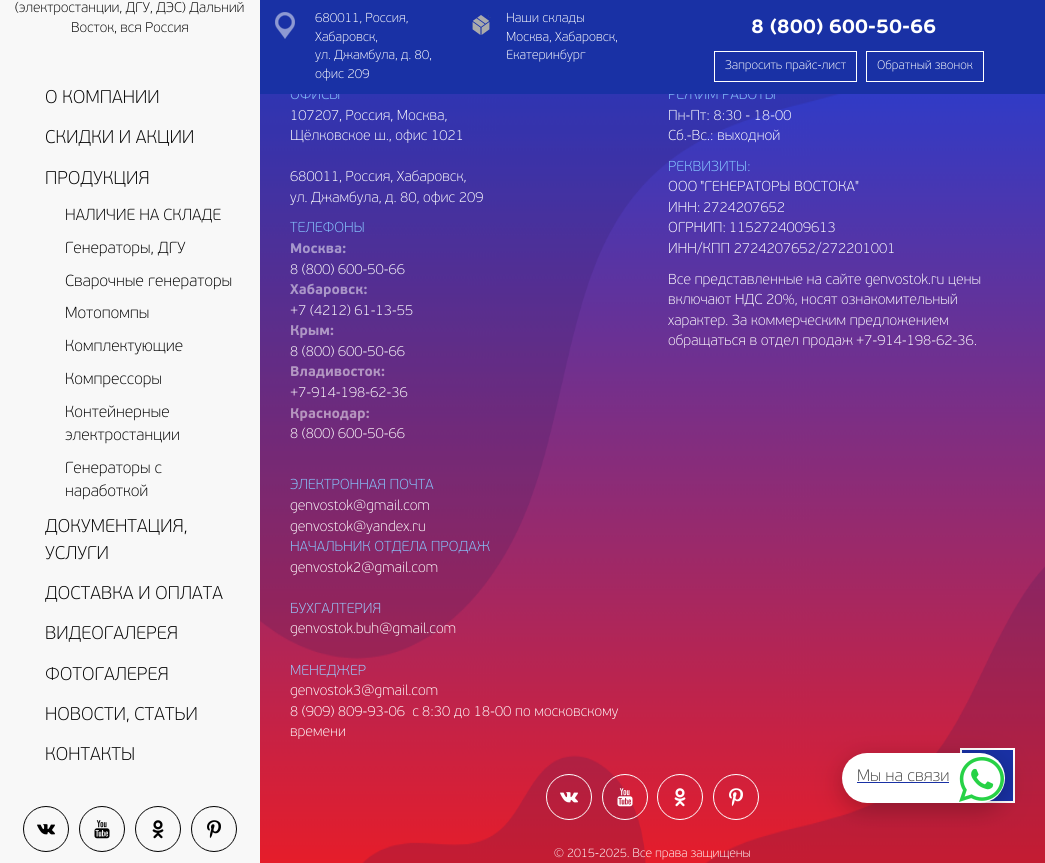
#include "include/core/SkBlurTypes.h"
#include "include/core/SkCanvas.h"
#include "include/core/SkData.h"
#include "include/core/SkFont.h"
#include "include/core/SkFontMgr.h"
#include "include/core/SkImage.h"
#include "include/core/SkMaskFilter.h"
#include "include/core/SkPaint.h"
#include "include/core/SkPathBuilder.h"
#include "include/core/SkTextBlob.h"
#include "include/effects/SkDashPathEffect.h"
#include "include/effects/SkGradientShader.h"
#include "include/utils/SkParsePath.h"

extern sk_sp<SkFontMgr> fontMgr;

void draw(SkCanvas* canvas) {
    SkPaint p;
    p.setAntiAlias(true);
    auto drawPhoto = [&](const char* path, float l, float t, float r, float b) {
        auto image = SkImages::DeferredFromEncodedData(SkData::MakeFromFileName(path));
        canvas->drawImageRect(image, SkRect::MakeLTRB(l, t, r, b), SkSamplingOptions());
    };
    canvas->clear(0xFFF8F8F8);
    drawPhoto("media/1.png", 15, 1, 244, 15);
    drawPhoto("media/2.png", 72, 22, 188, 34);
    drawPhoto("media/3.png", 46, 89, 159, 104);
    drawPhoto("media/4.png", 46, 129, 193, 146);
    drawPhoto("media/5.png", 46, 170, 149, 187);
    drawPhoto("media/6.png", 66, 208, 221, 223);
    drawPhoto("media/7.png", 66, 241, 186, 257);
    drawPhoto("media/8.png", 65, 274, 232, 290);
    drawPhoto("media/9.png", 66, 306, 149, 319);
    drawPhoto("media/10.png", 66, 339, 183, 355);
    drawPhoto("media/11.png", 66, 372, 161, 388);
    drawPhoto("media/12.png", 66, 405, 169, 421);
    drawPhoto("media/13.png", 65, 431, 179, 444);
    drawPhoto("media/14.png", 66, 461, 162, 477);
    drawPhoto("media/15.png", 66, 484, 148, 500);
    drawPhoto("media/16.png", 45, 518, 187, 535);
    drawPhoto("media/17.png", 45, 545, 108, 560);
    drawPhoto("media/18.png", 45, 585, 223, 602);
    drawPhoto("media/19.png", 46, 625, 177, 642);
    drawPhoto("media/20.png", 46, 666, 168, 681);
    drawPhoto("media/21.png", 46, 706, 197, 723);
    drawPhoto("media/22.png", 46, 746, 134, 761);
    p.setStyle(SkPaint::kStroke_Style);
    p.setStrokeWidth(1);
    p.setColor(0xFF000000);
    canvas->drawCircle(46, 829, 22.5f, p);
    drawPhoto("media/23.png", 37, 824, 55, 835);
    canvas->drawCircle(102, 829, 22.5f, p);
    drawPhoto("media/24.png", 94, 820, 110, 839);
    canvas->drawCircle(158, 829, 22.5f, p);
    drawPhoto("media/25.png", 152, 820, 164, 839);
    canvas->drawCircle(214, 829, 22.5f, p);
    drawPhoto("media/26.png", 207, 820, 221, 839);
    p.setStyle(SkPaint::kFill_Style);
    p.setColor(0xFF1931A5);
    canvas->drawRect(SkRect::MakeLTRB(260, 0, 1045, 94), p);
    drawPhoto("media/27.png", 275, 12, 295, 39);
    drawPhoto("media/28.png", 315, 12, 408, 24);
    drawPhoto("media/29.png", 315, 31, 378, 44);
    drawPhoto("media/30.png", 315, 49, 432, 62);
    drawPhoto("media/31.png", 315, 68, 369, 81);
    drawPhoto("media/32.png", 472, 15, 491, 35);
    drawPhoto("media/33.png", 506, 12, 584, 24);
    drawPhoto("media/34.png", 506, 31, 617, 44);
    drawPhoto("media/35.png", 506, 49, 586, 62);
    drawPhoto("media/36.png", 752, 18, 936, 35);
    p.setStyle(SkPaint::kStroke_Style);
    p.setColor(0xFFFFFFFF);
    canvas->drawRect(SkRect::MakeLTRB(714.5f, 51.5f, 856.5f, 81.5f), p);
    drawPhoto("media/37.png", 725, 60, 846, 72);
    canvas->drawRect(SkRect::MakeLTRB(866.5f, 51.5f, 983.5f, 81.5f), p);
    drawPhoto("media/38.png", 877, 60, 973, 72);
    drawPhoto("media/39.png", 260, 94, 1045, 863);
    drawPhoto("media/40.png", 290, 94, 340, 100);
    drawPhoto("media/41.png", 291, 110, 339, 121);
    drawPhoto("media/42.png", 339, 109, 447, 122);
    drawPhoto("media/43.png", 291, 129, 463, 143);
    drawPhoto("media/44.png", 290, 171, 338, 182);
    drawPhoto("media/45.png", 339, 170, 466, 184);
    drawPhoto("media/46.png", 290, 191, 483, 205);
    drawPhoto("media/47.png", 290, 221, 364, 233);
    drawPhoto("media/48.png", 291, 243, 346, 254);
    drawPhoto("media/49.png", 290, 263, 405, 275);
    drawPhoto("media/50.png", 290, 283, 367, 297);
    drawPhoto("media/51.png", 290, 304, 413, 316);
    drawPhoto("media/52.png", 291, 325, 334, 338);
    drawPhoto("media/53.png", 290, 345, 405, 357);
    drawPhoto("media/54.png", 291, 366, 385, 379);
    drawPhoto("media/55.png", 290, 387, 408, 398);
    drawPhoto("media/56.png", 291, 408, 369, 421);
    drawPhoto("media/57.png", 290, 427, 405, 439);
    drawPhoto("media/58.png", 290, 478, 434, 490);
    drawPhoto("media/59.png", 290, 499, 429, 514);
    drawPhoto("media/60.png", 290, 520, 425, 535);
    drawPhoto("media/61.png", 291, 540, 490, 554);
    drawPhoto("media/62.png", 290, 561, 438, 576);
    drawPhoto("media/63.png", 291, 602, 381, 614);
    drawPhoto("media/64.png", 290, 622, 456, 637);
    drawPhoto("media/65.png", 291, 664, 366, 678);
    drawPhoto("media/66.png", 290, 684, 438, 699);
    drawPhoto("media/67.png", 290, 705, 405, 717);
    drawPhoto("media/68.png", 412, 708, 419, 717);
    drawPhoto("media/69.png", 422, 706, 619, 719);
    drawPhoto("media/70.png", 290, 728, 345, 739);
    drawPhoto("media/71.png", 669, 94, 775, 100);
    drawPhoto("media/72.png", 669, 109, 791, 121);
    drawPhoto("media/73.png", 668, 129, 780, 143);
    drawPhoto("media/74.png", 669, 160, 750, 172);
    drawPhoto("media/75.png", 668, 180, 697, 192);
    drawPhoto("media/76.png", 700, 180, 859, 192);
    drawPhoto("media/77.png", 669, 201, 700, 213);
    drawPhoto("media/78.png", 703, 202, 784, 213);
    drawPhoto("media/79.png", 668, 221, 725, 233);
    drawPhoto("media/80.png", 730, 222, 835, 233);
    drawPhoto("media/81.png", 669, 241, 894, 255);
    drawPhoto("media/82.png", 669, 273, 981, 288);
    drawPhoto("media/83.png", 668, 293, 957, 307);
    drawPhoto("media/84.png", 668, 314, 948, 328);
    drawPhoto("media/85.png", 668, 334, 853, 348);
    drawPhoto("media/86.png", 856, 335, 974, 346);
    drawPhoto("media/87.png", 974, 344, 976, 346);
    canvas->drawCircle(569, 797, 22.5f, p);
    drawPhoto("media/88.png", 560, 792, 578, 803);
    canvas->drawCircle(625, 797, 22.5f, p);
    drawPhoto("media/89.png", 617, 788, 633, 807);
    canvas->drawCircle(680, 797, 22.5f, p);
    drawPhoto("media/90.png", 674, 788, 686, 807);
    canvas->drawCircle(736, 797, 22.5f, p);
    drawPhoto("media/91.png", 729, 788, 743, 807);
    drawPhoto("media/92.png", 554, 848, 564, 858);
    drawPhoto("media/93.png", 567, 848, 750, 860);
    p.setStyle(SkPaint::kFill_Style);
    p.setColor(0xFF1931A5);
    canvas->drawRect(SkRect::MakeLTRB(961, 749, 1014, 802), p);
    p.setStyle(SkPaint::kStroke_Style);
    p.setStrokeWidth(2);
    p.setColor(0xFFFFFFFF);
    canvas->drawRect(SkRect::MakeLTRB(961, 749, 1014, 802), p);
    p.setStyle(SkPaint::kFill_Style);
    p.setColor(0x40000000);
    p.setMaskFilter(SkMaskFilter::MakeBlur(kNormal_SkBlurStyle, 12.5f));
    canvas->drawRoundRect(SkRect::MakeLTRB(842, 759, 1005, 809), 25, 25, p);
    p.setMaskFilter(nullptr);
    p.setColor(0xFFFFFFFF);
    canvas->drawRoundRect(SkRect::MakeLTRB(842, 753, 1005, 803), 25, 25, p);
    drawPhoto("media/94.png", 858, 769, 949, 782);
    p.setColor(0xFF1931A5);
    canvas->drawRect(SkRect::MakeLTRB(857, 782, 949, 783), p);
    drawPhoto("media/95.png", 959, 757, 1004, 802);
}
